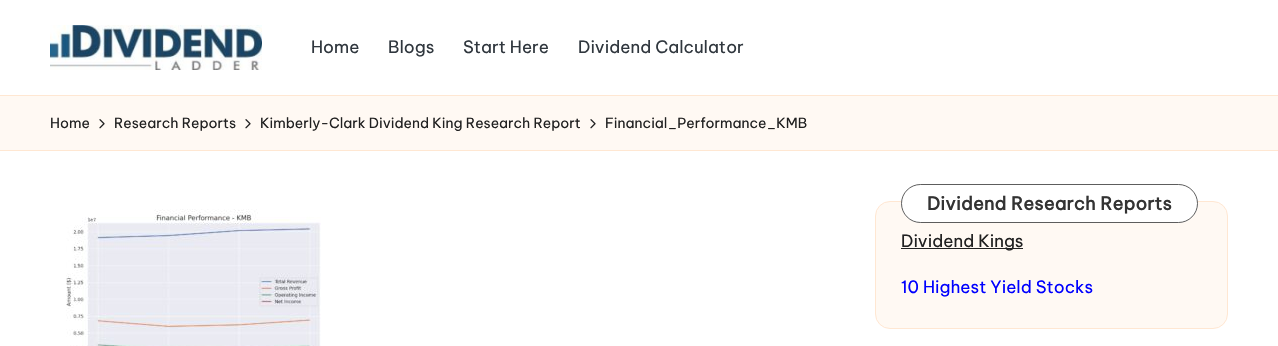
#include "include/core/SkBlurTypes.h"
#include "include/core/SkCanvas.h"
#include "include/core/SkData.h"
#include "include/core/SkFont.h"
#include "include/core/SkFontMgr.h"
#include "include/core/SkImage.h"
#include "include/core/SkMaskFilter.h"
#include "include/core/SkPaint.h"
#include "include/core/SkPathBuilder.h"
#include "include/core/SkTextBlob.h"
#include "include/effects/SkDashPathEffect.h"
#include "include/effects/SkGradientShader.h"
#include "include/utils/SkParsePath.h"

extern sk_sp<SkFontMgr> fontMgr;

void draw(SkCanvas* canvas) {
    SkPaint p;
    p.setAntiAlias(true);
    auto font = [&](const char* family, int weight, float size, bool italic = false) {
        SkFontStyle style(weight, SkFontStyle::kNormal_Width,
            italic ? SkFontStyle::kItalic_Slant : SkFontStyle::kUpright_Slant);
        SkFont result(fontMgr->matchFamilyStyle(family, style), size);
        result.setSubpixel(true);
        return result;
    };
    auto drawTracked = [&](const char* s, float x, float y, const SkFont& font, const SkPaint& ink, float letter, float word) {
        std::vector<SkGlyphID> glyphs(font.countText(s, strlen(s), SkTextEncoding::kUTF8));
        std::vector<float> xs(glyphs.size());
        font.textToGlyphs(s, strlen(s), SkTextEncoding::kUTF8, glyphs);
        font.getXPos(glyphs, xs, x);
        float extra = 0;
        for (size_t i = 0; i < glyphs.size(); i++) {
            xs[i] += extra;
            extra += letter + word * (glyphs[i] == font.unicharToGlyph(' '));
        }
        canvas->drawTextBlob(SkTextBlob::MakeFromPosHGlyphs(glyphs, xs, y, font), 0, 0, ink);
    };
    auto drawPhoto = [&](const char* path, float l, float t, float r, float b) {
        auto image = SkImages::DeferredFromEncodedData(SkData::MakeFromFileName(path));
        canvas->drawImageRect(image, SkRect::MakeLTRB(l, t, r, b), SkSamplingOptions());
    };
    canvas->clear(0xFFFFFFFF);
    drawPhoto("media/1.png", 50, 25, 262, 70);
    auto font1 = font("Be Vietnam Pro", 400, 17);
    p.setColor(0xFF30373E);
    {
        const struct { const char* s; float x, y; } items[] = {
            {"Home", 311, 53},
            {"Blogs", 388, 53},
            {"Start Here", 463, 53},
            {"Dividend Calculator", 578, 53},
        };
        for (auto [s, x, y] : items) {
            canvas->drawString(s, x, y, font1, p);
        }
    }
    {
        const struct { float l, t, r, b; SkColor color; } items[] = {
            {0, 96, 1278, 150, 0xFFFFF9F3},
            {0, 95, 1278, 96, 0xFFFFE7D2},
            {0, 150, 1278, 151, 0xFFFFE7D2},
        };
        for (auto [l, t, r, b, color] : items) {
            p.setColor(color);
            canvas->drawRect(SkRect::MakeLTRB(l, t, r, b), p);
        }
    }
    auto font2 = font("Be Vietnam Pro", 400, 14);
    p.setColor(0xFF212121);
    canvas->drawString("Home", 50, 128, font2, p);
    drawPhoto("media/2.png", 99, 119, 105, 129);
    canvas->drawString("Research Reports", 114, 128, font2, p);
    drawPhoto("media/2.png", 245, 119, 251, 129);
    canvas->drawString("Kimberly-Clark Dividend King Research Report", 260, 128, font2, p);
    drawPhoto("media/2.png", 590, 119, 596, 129);
    canvas->drawString("Financial_Performance_KMB", 605, 128, font2, p);
    drawPhoto("media/3.png", 66, 209, 321, 346);
    p.setColor(0xFFFFF9F3);
    canvas->drawRoundRect(SkRect::MakeLTRB(875.5f, 201.5f, 1227.5f, 328.5f), 14.5f, 14.5f, p);
    p.setStyle(SkPaint::kStroke_Style);
    p.setStrokeWidth(1);
    p.setColor(0xFFFFE7D2);
    canvas->drawRoundRect(SkRect::MakeLTRB(875.5f, 201.5f, 1227.5f, 328.5f), 14.5f, 14.5f, p);
    p.setStyle(SkPaint::kFill_Style);
    p.setColor(0xFFFFFFFF);
    canvas->drawRoundRect(SkRect::MakeLTRB(901, 184, 1198, 223), 19.5f, 19.5f, p);
    p.setStyle(SkPaint::kStroke_Style);
    p.setColor(0xBF272727);
    canvas->drawRoundRect(SkRect::MakeLTRB(901.5f, 184.5f, 1197.5f, 222.5f), 19, 19, p);
    auto font3 = font("Be Vietnam Pro", 700, 18);
    p.setStyle(SkPaint::kFill_Style);
    p.setColor(0xFF333333);
    drawTracked("Dividend Research Reports", 927, 210, font3, p, 0.25f, 0);
    p.setColor(0xFF212121);
    canvas->drawRect(SkRect::MakeLTRB(901, 248, 1023, 249), p);
    canvas->drawString("Dividend Kings", 901, 247, font1, p);
    p.setColor(0xFF0000FF);
    canvas->drawString("10 Highest Yield Stocks", 901, 293, font1, p);
}
